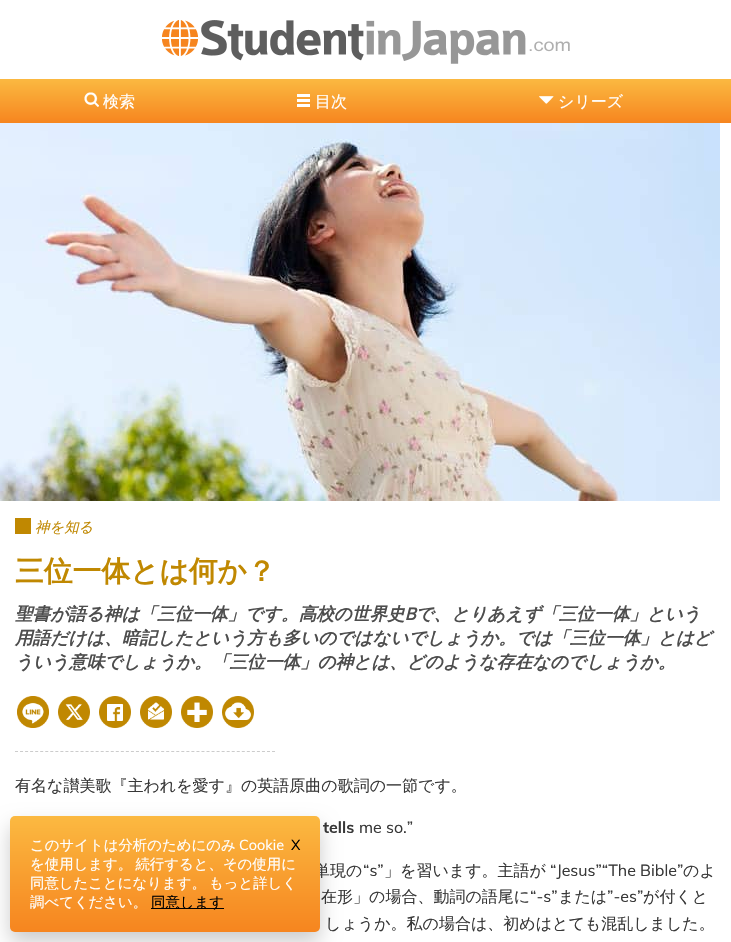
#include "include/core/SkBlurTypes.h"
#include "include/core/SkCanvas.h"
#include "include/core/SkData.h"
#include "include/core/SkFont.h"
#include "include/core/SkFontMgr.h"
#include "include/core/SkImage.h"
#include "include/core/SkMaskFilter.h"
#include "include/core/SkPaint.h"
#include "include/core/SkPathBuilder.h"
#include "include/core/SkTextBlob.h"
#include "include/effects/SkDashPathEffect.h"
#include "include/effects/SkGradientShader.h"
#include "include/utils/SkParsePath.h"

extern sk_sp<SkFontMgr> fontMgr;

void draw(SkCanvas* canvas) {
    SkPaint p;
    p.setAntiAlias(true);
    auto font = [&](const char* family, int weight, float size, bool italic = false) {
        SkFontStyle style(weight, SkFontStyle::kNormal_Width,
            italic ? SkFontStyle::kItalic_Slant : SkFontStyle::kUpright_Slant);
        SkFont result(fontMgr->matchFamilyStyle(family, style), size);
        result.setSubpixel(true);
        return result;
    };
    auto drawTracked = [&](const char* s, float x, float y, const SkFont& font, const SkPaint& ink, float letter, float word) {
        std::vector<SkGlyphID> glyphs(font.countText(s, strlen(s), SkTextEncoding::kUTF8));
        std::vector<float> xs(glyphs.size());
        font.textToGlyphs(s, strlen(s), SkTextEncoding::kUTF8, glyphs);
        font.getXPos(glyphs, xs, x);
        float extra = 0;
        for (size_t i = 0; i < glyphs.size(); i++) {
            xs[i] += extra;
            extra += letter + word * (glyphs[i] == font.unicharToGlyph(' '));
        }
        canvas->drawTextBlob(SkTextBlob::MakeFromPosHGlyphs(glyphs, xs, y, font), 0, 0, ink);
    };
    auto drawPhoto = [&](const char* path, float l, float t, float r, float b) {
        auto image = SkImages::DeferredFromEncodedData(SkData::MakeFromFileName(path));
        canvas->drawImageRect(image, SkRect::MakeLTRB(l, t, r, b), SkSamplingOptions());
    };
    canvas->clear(0xFFFFFFFF);
    drawPhoto("media/1.png", 162, 20, 570, 64);
    {
        const SkColor colors[] = {0xFFFBB941, 0xFFF6851F};
        const float stops[] = {0, 1};
        const SkPoint ends[] = {{366, 79}, {366, 123}};
        p.setShader(SkGradientShader::MakeLinear(ends, colors, stops, 2, SkTileMode::kClamp));
        p.setAlpha(255);
    }
    canvas->drawRect(SkRect::MakeLTRB(0, 79, 731, 123), p);
    drawPhoto("media/2.png", 84, 92, 99, 107);
    auto font1 = font("WenQuanYi Zen Hei", 500, 16);
    p.setShader(nullptr);
    p.setColor(0xFFFFFFFF);
    canvas->drawString("検索", 103, 107, font1, p);
    drawPhoto("media/3.png", 297, 94, 310, 107);
    canvas->drawString("目次", 315, 107, font1, p);
    drawPhoto("media/4.png", 539, 96, 554, 104);
    canvas->drawString("シリーズ", 558, 107, font1, p);
    drawPhoto("media/5.png", 0, 123, 720, 501);
    p.setColor(0xFFC08801);
    canvas->drawRect(SkRect::MakeLTRB(15, 518, 31, 534), p);
    auto font2 = font("WenQuanYi Zen Hei", 500, 14.4f, true);
    canvas->drawString("神を知る", 35, 532, font2, p);
    auto font3 = font("WenQuanYi Zen Hei", 700, 28.75f);
    canvas->drawString("三位一体とは何か？", 15, 581, font3, p);
    auto font4 = font("WenQuanYi Zen Hei", 700, 17.6f, true);
    p.setColor(0xFF4D4D4D);
    {
        const struct { const char* s; float x, y; } items[] = {
            {"聖書が語る神は「三位一体」です。高校の世界史Bで、とりあえず「三位一体」という", 15, 620},
            {"用語だけは、暗記したという方も多いのではないでしょうか。では「三位一体」とはど", 15, 644},
            {"ういう意味でしょうか。「三位一体」の神とは、どのような存在なのでしょうか。", 15, 668},
        };
        for (auto [s, x, y] : items) {
            canvas->drawString(s, x, y, font4, p);
        }
    }
    drawPhoto("media/6.png", 17, 696, 49, 728);
    drawPhoto("media/7.png", 58, 696, 90, 728);
    drawPhoto("media/8.png", 99, 696, 131, 728);
    drawPhoto("media/9.png", 140, 696, 172, 728);
    drawPhoto("media/10.png", 181, 696, 213, 728);
    drawPhoto("media/11.png", 222, 696, 254, 728);
    p.setStyle(SkPaint::kStroke_Style);
    p.setStrokeWidth(1);
    p.setColor(0xFFCCCCCC);
    p.setPathEffect(SkDashPathEffect::Make({{3, 2.04f}}, 0));
    canvas->drawPath(SkPathBuilder().moveTo(15, 751.5f).lineTo(275, 751.5f).detach(), p);
    p.setPathEffect(nullptr);
    p.setStyle(SkPaint::kFill_Style);
    p.setColor(0xFF383838);
    canvas->drawString("有名な讃美歌『主われを愛す』の英語原曲の歌詞の一節です。", 15, 791, font1, p);
    auto font5 = font("Mulish", 700, 16);
    canvas->drawString("tells", 323, 833, font5, p);
    auto font6 = font("Mulish", 400, 16);
    canvas->drawString("me so.”", 359, 833, font6, p);
    canvas->drawString("単現の", 314, 876, font1, p);
    canvas->drawString("“s”", 363, 876, font6, p);
    canvas->drawString("」を習います。主語が", 384, 876, font1, p);
    canvas->drawString("“Jesus”“The Bible”", 550, 876, font6, p);
    canvas->drawString("のよ", 683, 876, font1, p);
    canvas->drawString("在形」の場合、動詞の語尾に", 321, 902, font1, p);
    canvas->drawString("“-s”", 530, 902, font6, p);
    canvas->drawString("または", 558, 902, font1, p);
    canvas->drawString("”-es”", 607, 902, font6, p);
    canvas->drawString("が付くと", 643, 902, font1, p);
    canvas->drawString("しょうか。私の場合は、初めはとても混乱しました。", 325, 929, font1, p);
    p.setColor(0x33000000);
    p.setMaskFilter(SkMaskFilter::MakeBlur(kNormal_SkBlurStyle, 10));
    canvas->drawRoundRect(SkRect::MakeLTRB(10, 826, 320, 942), 5, 5, p);
    p.setMaskFilter(nullptr);
    {
        const SkColor colors[] = {0xFFFBB941, 0xFFF6851F};
        const float stops[] = {0, 1};
        const SkPoint ends[] = {{165, 816}, {165, 932}};
        p.setShader(SkGradientShader::MakeLinear(ends, colors, stops, 2, SkTileMode::kClamp));
        p.setAlpha(255);
    }
    canvas->drawRoundRect(SkRect::MakeLTRB(10, 816, 320, 932), 5, 5, p);
    auto font7 = font("WenQuanYi Zen Hei", 500, 14.4f);
    p.setShader(nullptr);
    p.setColor(0xFFFFFFFF);
    canvas->drawString("このサイトは分析のためにのみ", 30, 850, font7, p);
    auto font8 = font("Mulish", 400, 14.4f);
    canvas->drawString("Cookie", 239, 850, font8, p);
    p.setColor(0xFF000000);
    canvas->drawString("X", 291, 850, font8, p);
    p.setColor(0xFFFFFFFF);
    drawTracked("を使用します。 続行すると、その使用に", 30, 869, font7, p, 0, -1);
    {
        const struct { const char* s; float x, y; } items[] = {
            {"同意したことになります。", 30, 888},
            {"もっと詳しく", 209, 888},
            {"調べてください。", 30, 907},
        };
        for (auto [s, x, y] : items) {
            canvas->drawString(s, x, y, font7, p);
        }
    }
    p.setColor(0xFF000000);
    canvas->drawRect(SkRect::MakeLTRB(151, 908, 224, 909), p);
    canvas->drawString("同意します", 151, 907, font7, p);
}
